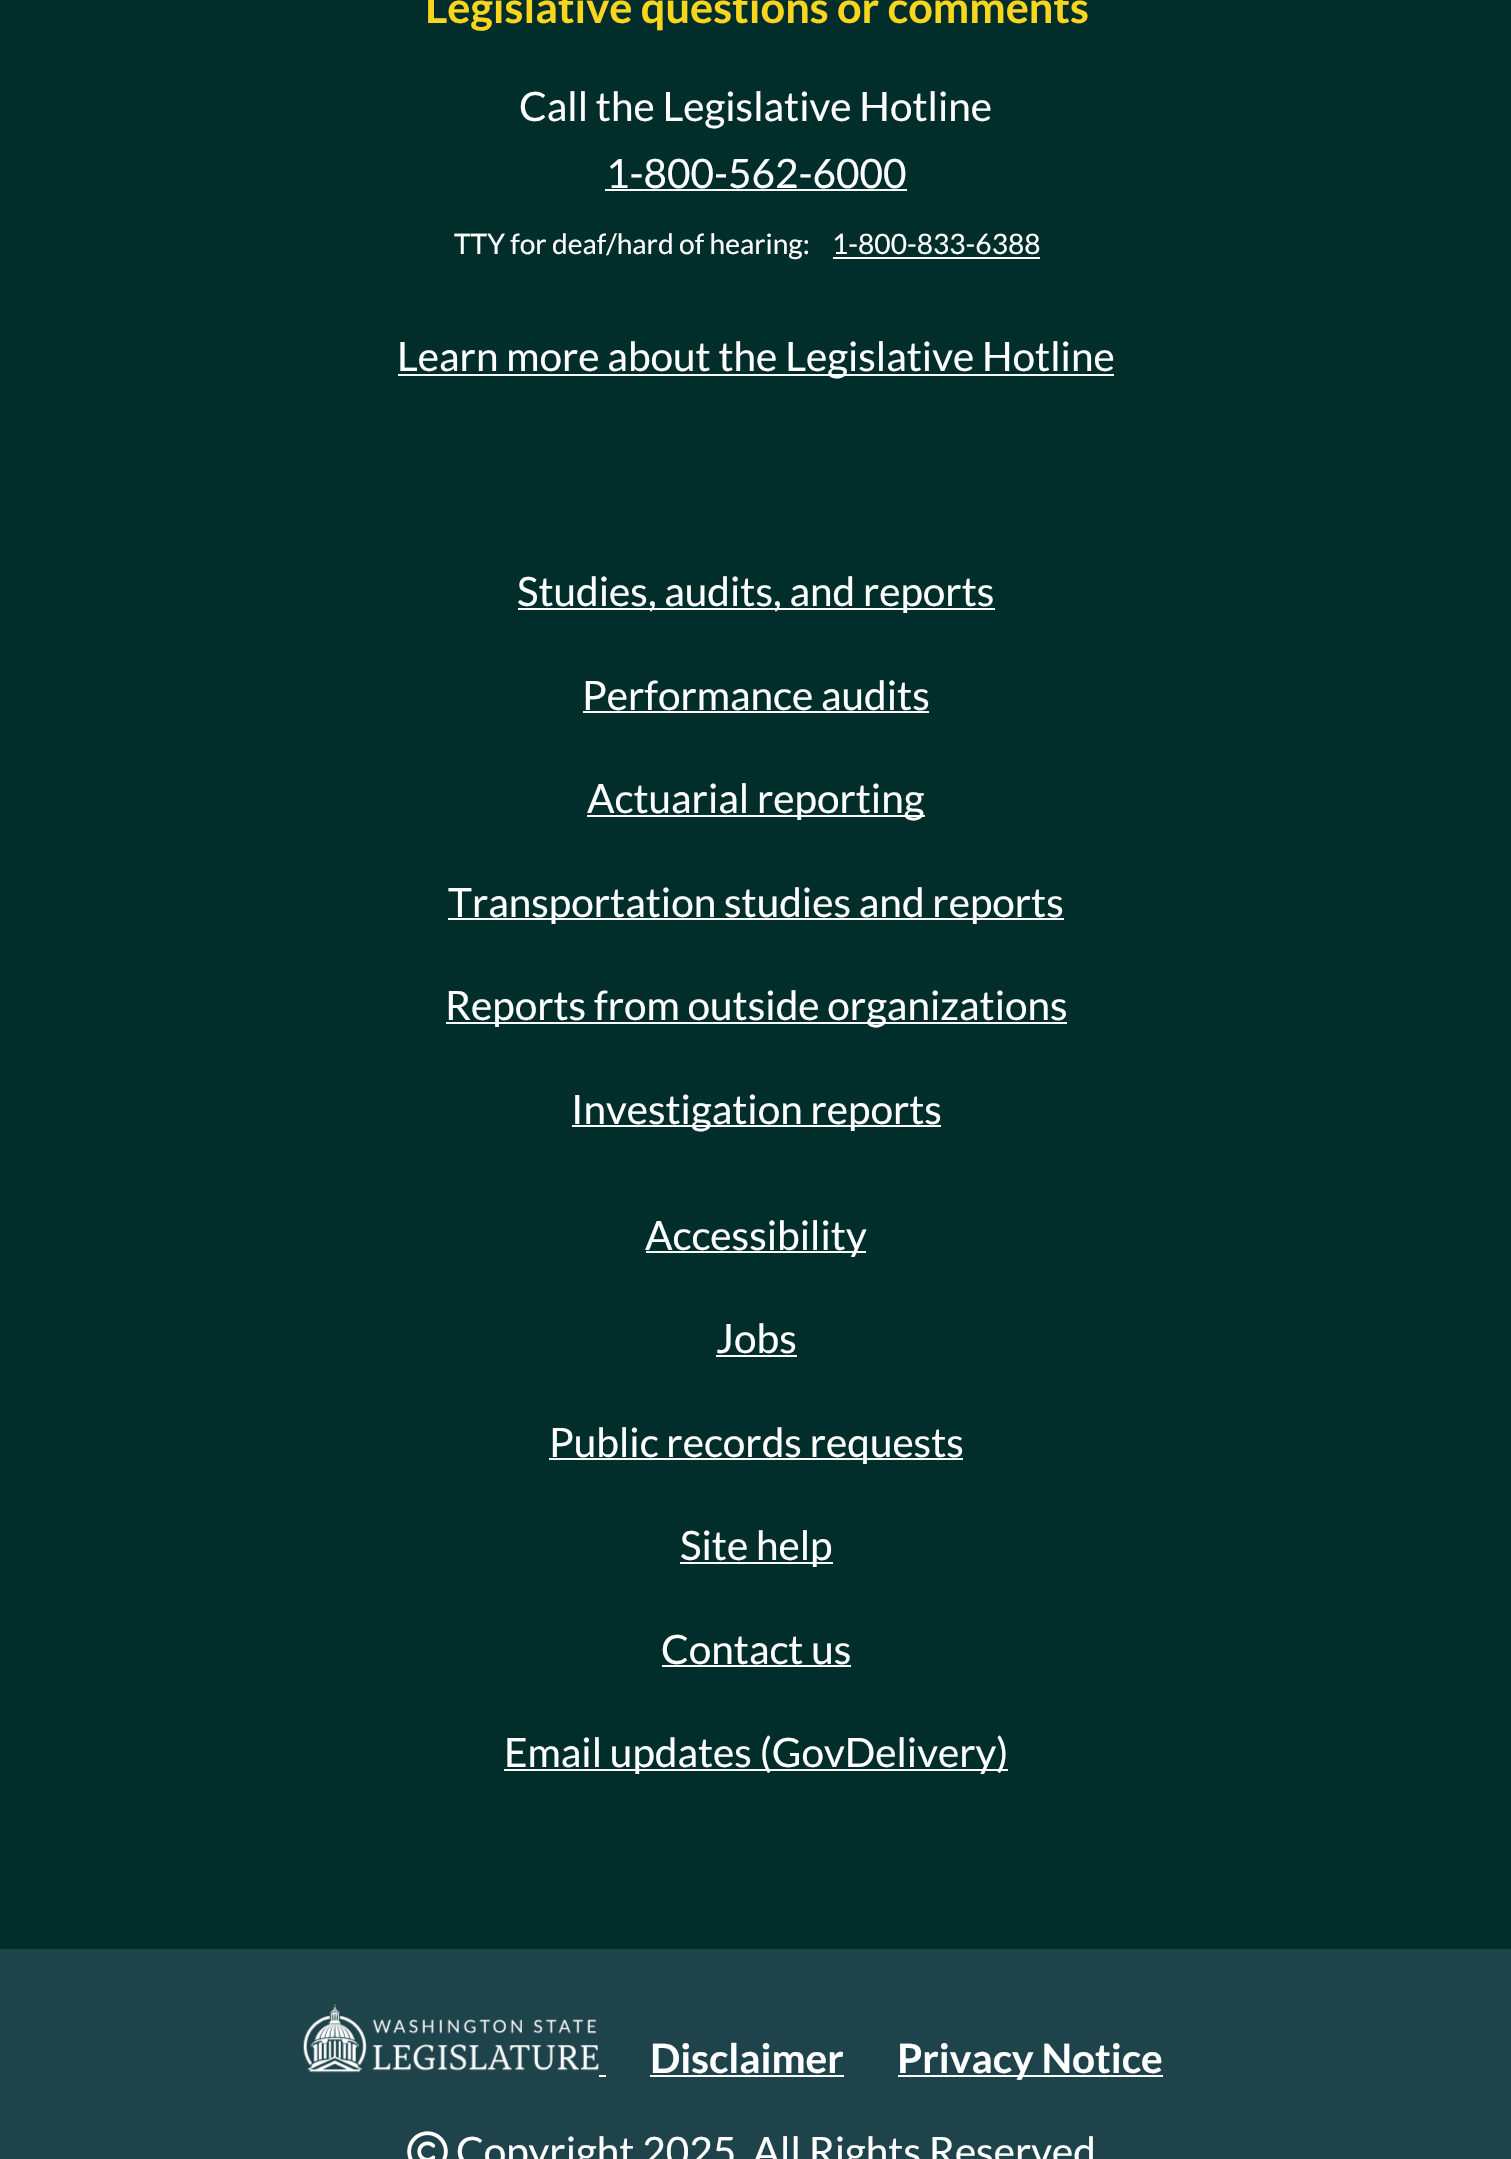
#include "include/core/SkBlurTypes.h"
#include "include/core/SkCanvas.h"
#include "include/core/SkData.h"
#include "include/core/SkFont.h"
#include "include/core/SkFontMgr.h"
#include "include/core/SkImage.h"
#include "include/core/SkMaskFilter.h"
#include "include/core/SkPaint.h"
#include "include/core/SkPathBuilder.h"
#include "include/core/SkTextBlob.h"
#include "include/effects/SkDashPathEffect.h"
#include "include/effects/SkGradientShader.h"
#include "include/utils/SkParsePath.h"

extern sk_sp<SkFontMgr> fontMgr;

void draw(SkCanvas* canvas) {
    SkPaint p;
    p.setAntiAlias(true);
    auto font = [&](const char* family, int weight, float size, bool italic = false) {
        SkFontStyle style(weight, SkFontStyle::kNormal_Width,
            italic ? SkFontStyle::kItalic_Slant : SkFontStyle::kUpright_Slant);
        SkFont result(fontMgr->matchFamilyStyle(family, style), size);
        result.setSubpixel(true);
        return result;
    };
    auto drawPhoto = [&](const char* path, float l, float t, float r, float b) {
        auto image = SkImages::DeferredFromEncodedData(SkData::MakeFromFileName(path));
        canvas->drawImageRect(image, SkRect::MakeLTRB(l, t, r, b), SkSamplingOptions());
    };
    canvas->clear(0xFF012E2A);
    auto font1 = font("Lato", 700, 43.25f);
    p.setColor(0xFFFAD51D);
    canvas->drawString("Legislative questions or comments", 425, 23, font1, p);
    auto font2 = font("Lato", 400, 40.5f);
    p.setColor(0xFFFFFFFF);
    canvas->drawString("Call the Legislative Hotline", 519, 121, font2, p);
    canvas->drawString("1-800-562-6000", 606, 188, font2, p);
    canvas->drawRect(SkRect::MakeLTRB(605, 189, 907, 191), p);
    auto font3 = font("Lato", 400, 28.1f);
    canvas->drawString("TTY for deaf/hard of hearing:", 454, 254, font3, p);
    canvas->drawString("1-800-833-6388", 832, 254, font3, p);
    canvas->drawRect(SkRect::MakeLTRB(833, 257, 1040, 259), p);
    canvas->drawRect(SkRect::MakeLTRB(398, 374, 1114, 376), p);
    canvas->drawString("Learn more about the Legislative Hotline", 397, 371, font2, p);
    canvas->drawRect(SkRect::MakeLTRB(518, 608, 995, 610), p);
    canvas->drawString("Studies, audits, and reports", 517, 606, font2, p);
    canvas->drawString("Performance audits", 582, 710, font2, p);
    canvas->drawRect(SkRect::MakeLTRB(583, 711, 929, 713), p);
    canvas->drawRect(SkRect::MakeLTRB(587, 815, 925, 817), p);
    canvas->drawString("Actuarial reporting", 587, 813, font2, p);
    canvas->drawRect(SkRect::MakeLTRB(448, 918, 1064, 920), p);
    canvas->drawString("Transportation studies and reports", 448, 917, font2, p);
    canvas->drawRect(SkRect::MakeLTRB(446, 1022, 1067, 1024), p);
    canvas->drawString("Reports from outside organizations", 445, 1020, font2, p);
    canvas->drawRect(SkRect::MakeLTRB(572, 1125, 941, 1127), p);
    canvas->drawString("Investigation reports", 571, 1124, font2, p);
    canvas->drawRect(SkRect::MakeLTRB(646, 1251, 866, 1253), p);
    canvas->drawString("Accessibility", 645, 1250, font2, p);
    canvas->drawString("Jobs", 716, 1353, font2, p);
    canvas->drawRect(SkRect::MakeLTRB(716, 1355, 797, 1357), p);
    canvas->drawRect(SkRect::MakeLTRB(549, 1458, 963, 1460), p);
    canvas->drawString("Public records requests", 549, 1457, font2, p);
    canvas->drawRect(SkRect::MakeLTRB(680, 1562, 833, 1564), p);
    canvas->drawString("Site help", 680, 1560, font2, p);
    canvas->drawString("Contact us", 661, 1664, font2, p);
    canvas->drawRect(SkRect::MakeLTRB(662, 1665, 851, 1667), p);
    canvas->drawRect(SkRect::MakeLTRB(504, 1769, 1008, 1771), p);
    canvas->drawString("Email updates (GovDelivery)", 504, 1767, font2, p);
    p.setColor(0xFF1E434A);
    canvas->drawRect(SkRect::MakeLTRB(0, 1949, 1511, 2159), p);
    drawPhoto("media/1.png", 303, 2004, 599, 2073);
    p.setColor(0xFFFFFFFF);
    canvas->drawRect(SkRect::MakeLTRB(599, 2075, 606, 2077), p);
    auto font4 = font("Lato", 700, 40.5f);
    canvas->drawString("Disclaimer", 650, 2073, font4, p);
    canvas->drawRect(SkRect::MakeLTRB(650, 2075, 844, 2077), p);
    canvas->drawRect(SkRect::MakeLTRB(898, 2075, 1163, 2077), p);
    canvas->drawString("Privacy Notice", 897, 2073, font4, p);
    drawPhoto("media/2.png", 407, 2131, 448, 2159);
    canvas->drawString("Copyright 2025. All Rights Reserved", 456, 2166, font2, p);
}
